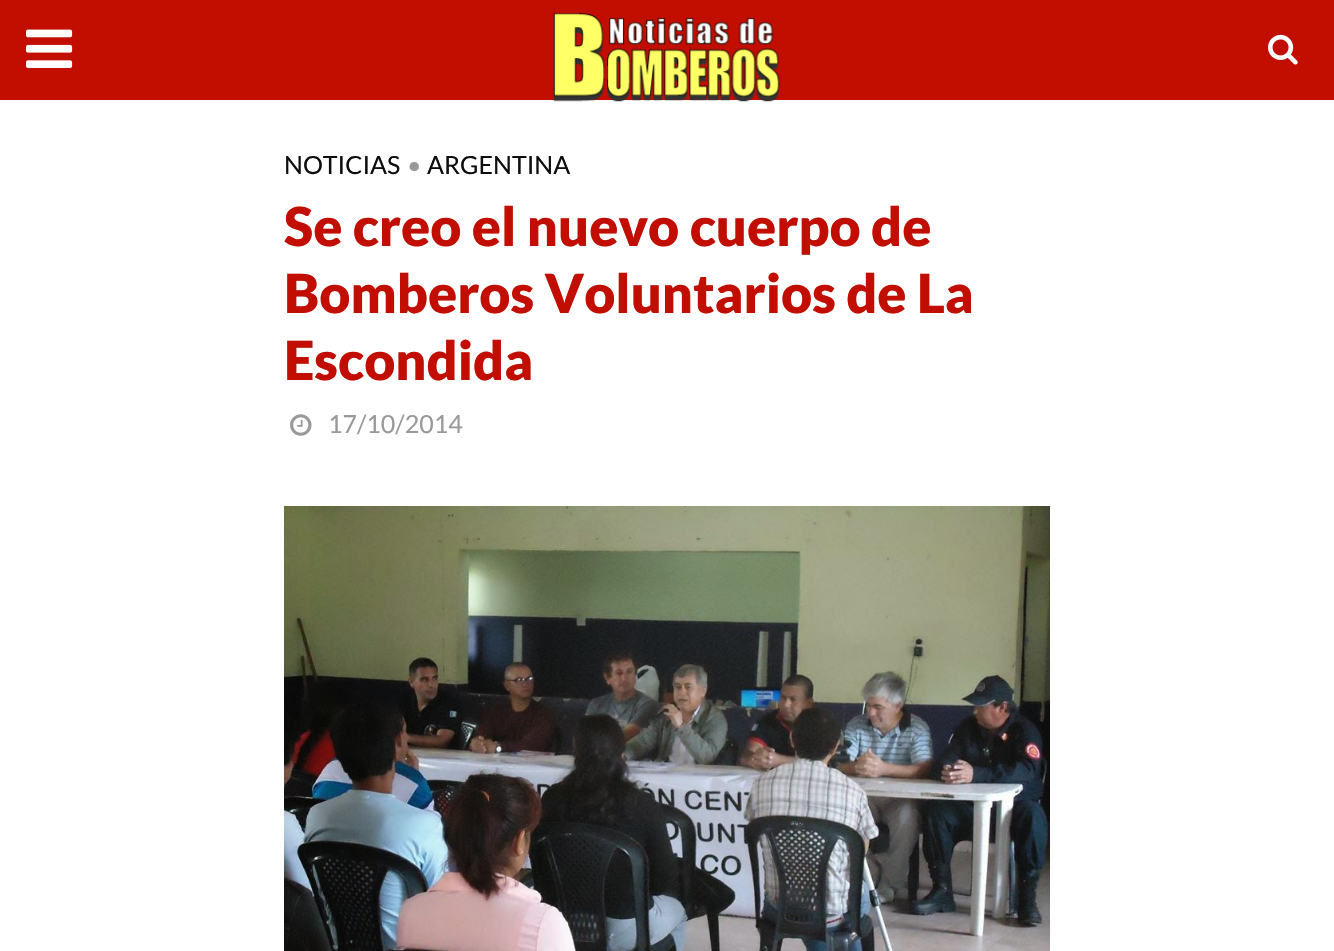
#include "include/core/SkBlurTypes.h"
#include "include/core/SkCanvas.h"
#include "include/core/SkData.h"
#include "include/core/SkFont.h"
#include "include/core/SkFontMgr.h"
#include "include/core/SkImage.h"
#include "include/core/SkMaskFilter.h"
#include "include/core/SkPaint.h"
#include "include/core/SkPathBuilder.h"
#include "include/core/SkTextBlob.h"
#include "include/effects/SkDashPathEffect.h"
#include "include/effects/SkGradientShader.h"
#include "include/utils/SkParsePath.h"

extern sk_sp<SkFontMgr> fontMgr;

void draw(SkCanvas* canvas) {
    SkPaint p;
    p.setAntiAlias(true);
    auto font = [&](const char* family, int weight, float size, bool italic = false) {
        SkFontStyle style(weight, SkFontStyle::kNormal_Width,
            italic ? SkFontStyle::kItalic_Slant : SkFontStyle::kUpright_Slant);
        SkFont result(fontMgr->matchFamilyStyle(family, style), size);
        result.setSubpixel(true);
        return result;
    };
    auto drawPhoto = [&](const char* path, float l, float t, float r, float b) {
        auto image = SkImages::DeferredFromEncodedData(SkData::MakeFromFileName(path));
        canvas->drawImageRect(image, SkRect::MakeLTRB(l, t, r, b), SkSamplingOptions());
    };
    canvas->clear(0xFFFFFFFF);
    p.setColor(0xFFC10E01);
    canvas->drawRect(SkRect::MakeLTRB(0, 0, 1334, 100), p);
    drawPhoto("media/1.png", 26, 29, 73, 68);
    drawPhoto("media/2.png", 553, 13, 780, 102);
    drawPhoto("media/3.png", 1268, 34, 1298, 65);
    auto font1 = font("Lato", 400, 25);
    p.setColor(0xFF0E0E0E);
    canvas->drawString("NOTICIAS", 284, 174, font1, p);
    p.setColor(0xFF999999);
    canvas->drawString("•", 407, 174, font1, p);
    p.setColor(0xFF0E0E0E);
    canvas->drawString("ARGENTINA", 427, 174, font1, p);
    auto font2 = font("Lato", 900, 53.75f);
    p.setColor(0xFFC10E01);
    {
        const struct { const char* s; float x, y; } items[] = {
            {"Se creo el nuevo cuerpo de", 284, 246},
            {"Bomberos Voluntarios de La", 284, 313},
            {"Escondida", 284, 380},
        };
        for (auto [s, x, y] : items) {
            canvas->drawString(s, x, y, font2, p);
        }
    }
    drawPhoto("media/4.png", 290, 414, 312, 436);
    p.setColor(0xFF999999);
    canvas->drawString("17/10/2014", 328, 433, font1, p);
    drawPhoto("media/5.png", 284, 506, 1050, 951);
}
